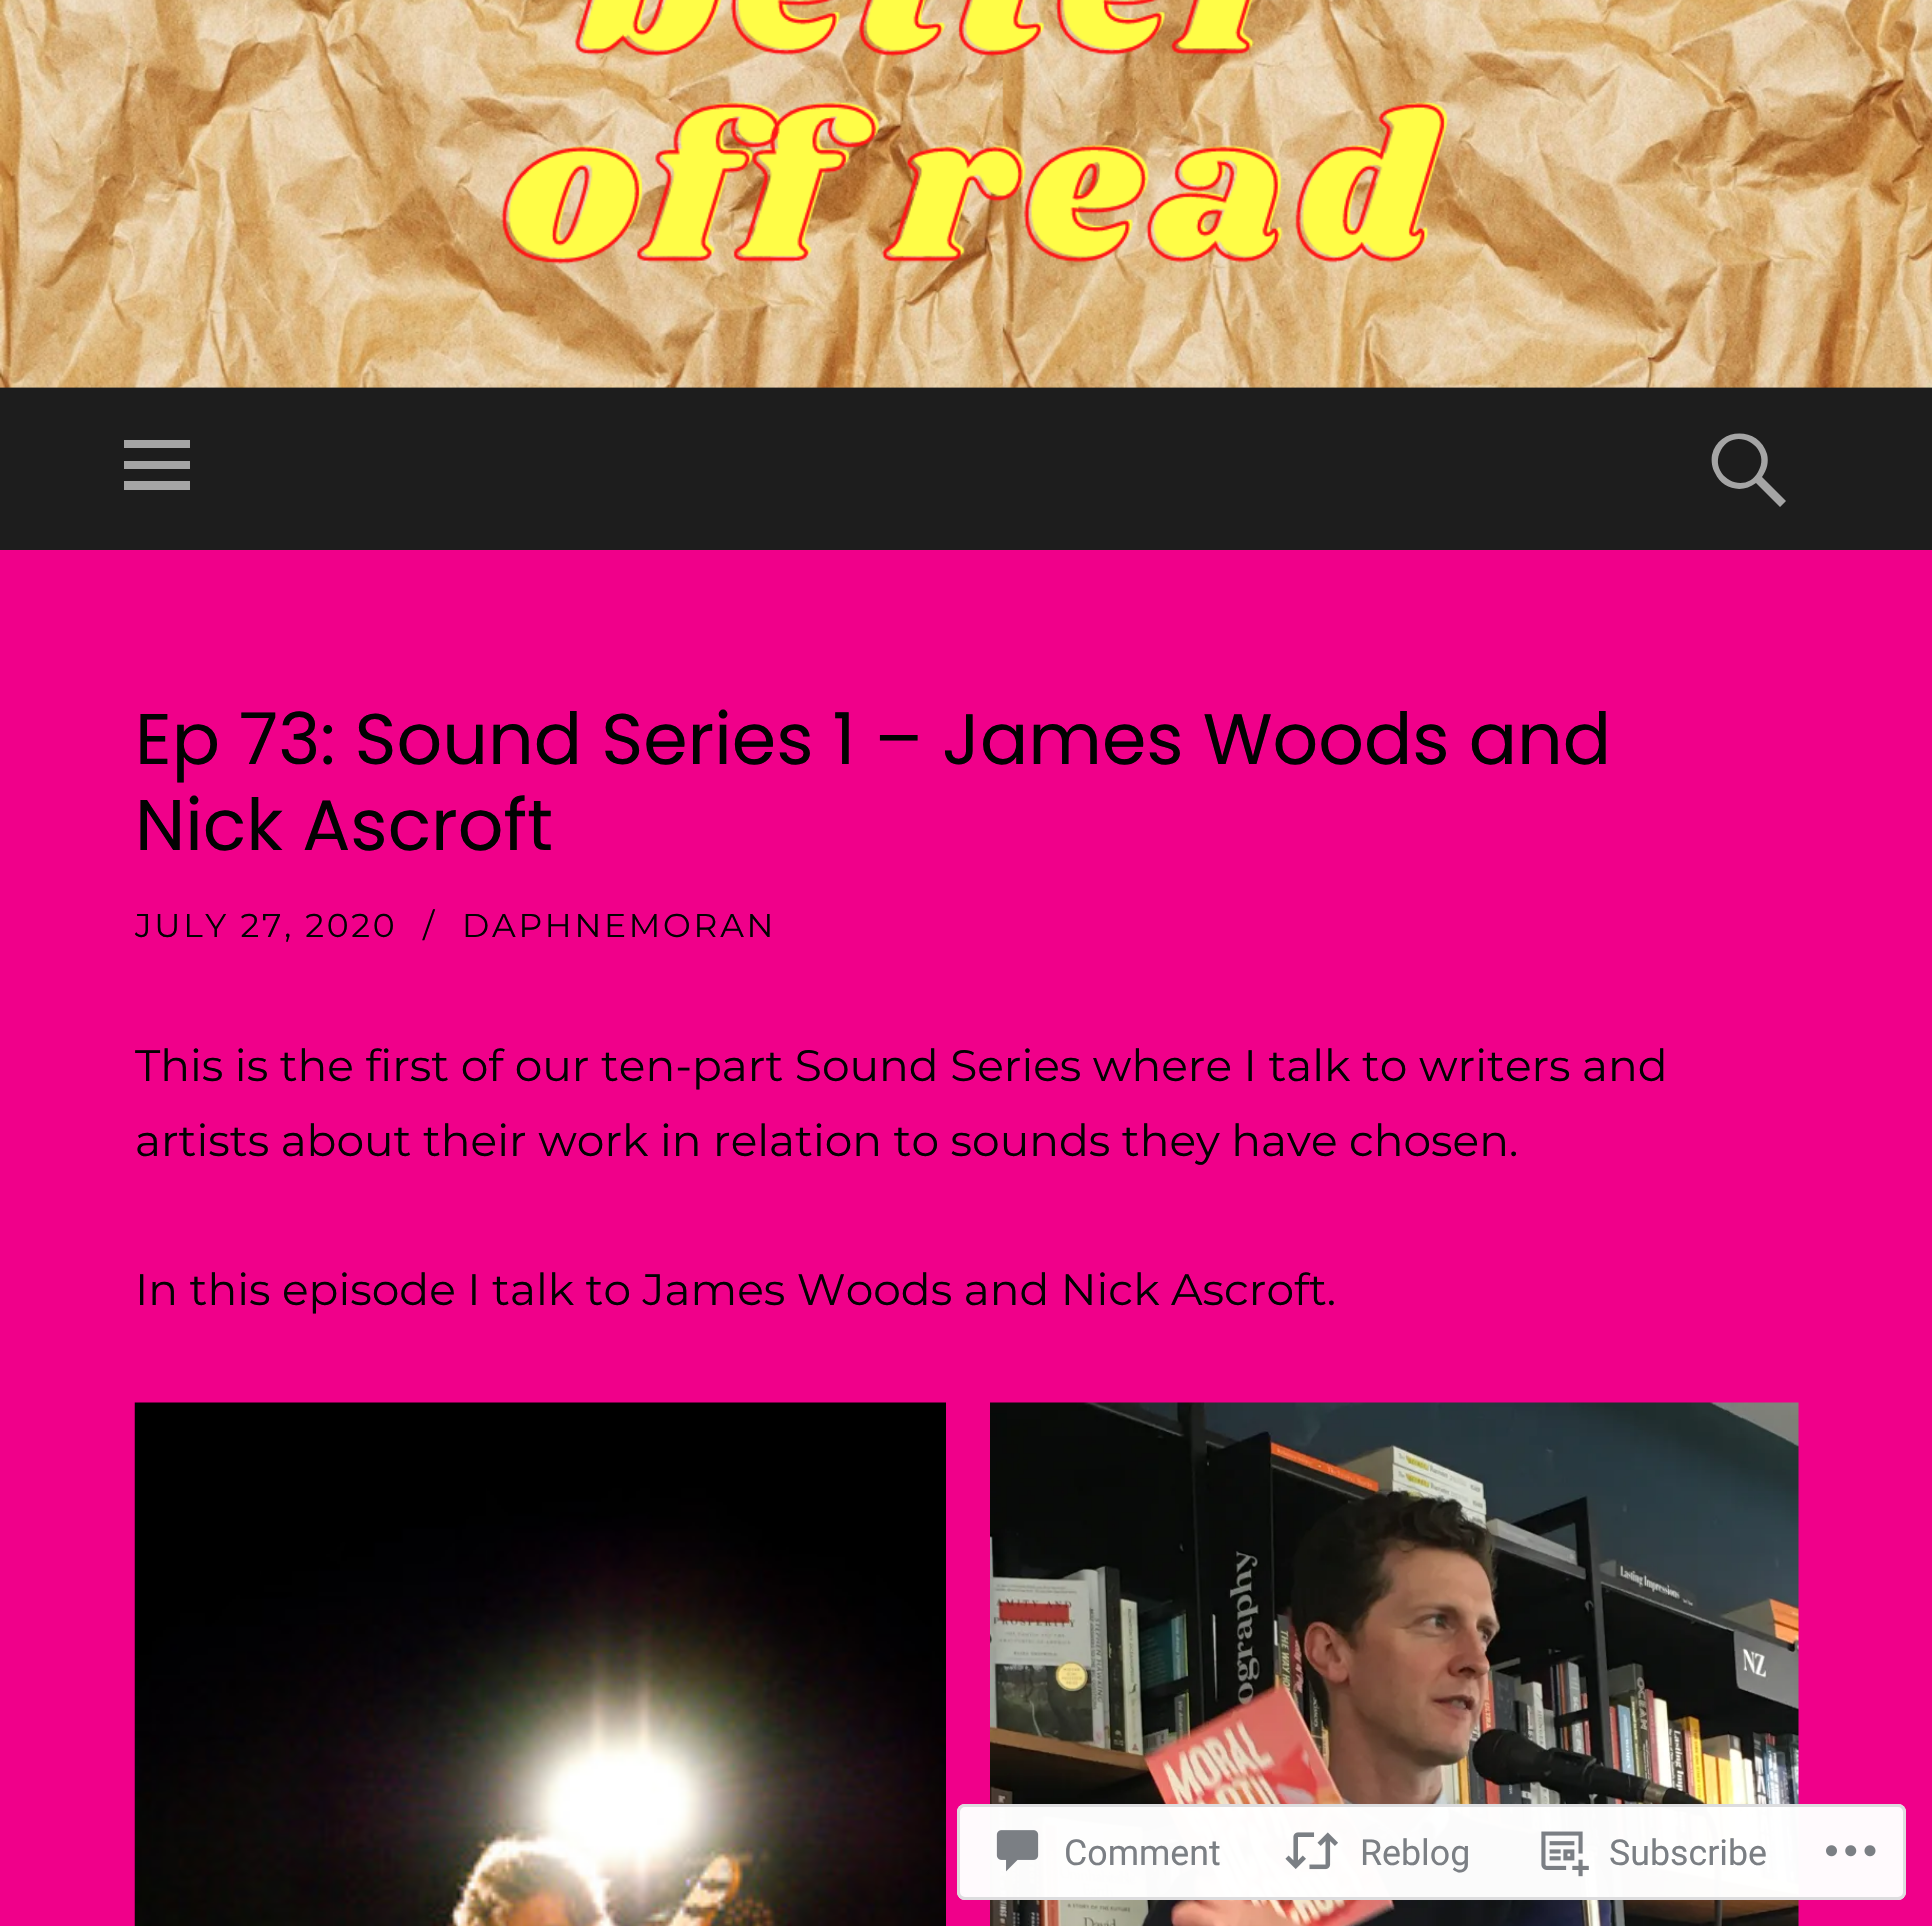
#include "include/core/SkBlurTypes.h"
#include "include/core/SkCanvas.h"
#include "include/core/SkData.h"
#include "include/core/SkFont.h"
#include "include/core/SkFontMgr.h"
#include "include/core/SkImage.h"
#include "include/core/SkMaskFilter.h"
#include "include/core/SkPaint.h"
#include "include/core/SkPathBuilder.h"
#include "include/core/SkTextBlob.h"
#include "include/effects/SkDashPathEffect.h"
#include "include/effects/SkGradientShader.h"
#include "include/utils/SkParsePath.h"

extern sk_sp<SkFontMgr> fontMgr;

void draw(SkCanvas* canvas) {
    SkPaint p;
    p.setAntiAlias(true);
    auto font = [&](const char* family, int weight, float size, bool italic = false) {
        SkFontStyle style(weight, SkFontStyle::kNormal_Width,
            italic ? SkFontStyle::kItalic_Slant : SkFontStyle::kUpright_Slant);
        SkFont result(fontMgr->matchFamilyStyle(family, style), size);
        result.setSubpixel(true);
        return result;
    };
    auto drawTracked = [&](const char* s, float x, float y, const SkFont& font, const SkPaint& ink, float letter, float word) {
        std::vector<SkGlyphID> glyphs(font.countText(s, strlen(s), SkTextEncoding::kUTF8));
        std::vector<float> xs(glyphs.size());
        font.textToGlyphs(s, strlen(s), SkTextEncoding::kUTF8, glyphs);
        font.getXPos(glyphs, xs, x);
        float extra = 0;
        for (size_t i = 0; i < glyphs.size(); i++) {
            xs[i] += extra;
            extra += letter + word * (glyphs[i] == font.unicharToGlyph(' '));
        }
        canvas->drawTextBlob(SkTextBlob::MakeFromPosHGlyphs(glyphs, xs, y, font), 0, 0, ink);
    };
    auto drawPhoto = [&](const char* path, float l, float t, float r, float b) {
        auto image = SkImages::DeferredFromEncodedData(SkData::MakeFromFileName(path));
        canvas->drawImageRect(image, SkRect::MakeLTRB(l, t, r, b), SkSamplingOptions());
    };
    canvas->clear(0xFFF0008A);
    p.setColor(0xFF262626);
    canvas->drawRect(SkRect::MakeLTRB(0, 387, 1932, 388), p);
    drawPhoto("media/1.png", 0, 0, 1932, 388);
    p.setColor(0xFF1D1D1D);
    canvas->drawRect(SkRect::MakeLTRB(0, 388, 1932, 550), p);
    p.setColor(0xFFA5A5A5);
    canvas->drawPath(SkPathBuilder().moveTo(124, 490).lineTo(124, 481).lineTo(190, 481).lineTo(190, 490).close().moveTo(124, 440).lineTo(190, 440).lineTo(190, 448).lineTo(124, 448).close().moveTo(124, 469).lineTo(124, 461).lineTo(190, 461).lineTo(190, 469).close().detach(), p);
    canvas->drawPath(SkPathBuilder().moveTo(1786, 501).lineTo(1780, 507).lineTo(1756, 483).cubicTo(1742, 494, 1722, 489, 1715, 473).cubicTo(1712, 468, 1711, 461, 1712, 455).cubicTo(1718, 427, 1759, 426, 1767, 454).cubicTo(1769, 462, 1767, 470, 1762, 477).close().moveTo(1721, 450).cubicTo(1707, 475, 1744, 497, 1758, 472).cubicTo(1773, 447, 1735, 425, 1721, 450).close().detach(), p);
    auto font1 = font("Poppins", 400, 71.5f);
    p.setColor(0xFF020202);
    canvas->drawString("Ep 73: Sound Series 1 – James Woods and", 135, 764, font1, p);
    canvas->drawString("Nick Ascroft", 135, 850, font1, p);
    auto font2 = font("Montserrat", 400, 33);
    {
        const struct { const char* s; float x, y; } items[] = {
            {"JULY 27, 2020", 135, 937},
            {"/", 423, 937},
            {"DAPHNEMORAN", 462, 937},
        };
        for (auto [s, x, y] : items) {
            drawTracked(s, x, y, font2, p, 2.75f, 0);
        }
    }
    auto font3 = font("Montserrat", 400, 44);
    {
        const struct { const char* s; float x, y; } items[] = {
            {"This is the first of our ten-part Sound Series where I talk to writers and", 135, 1081},
            {"artists about their work in relation to sounds they have chosen.", 135, 1156},
            {"In this episode I talk to James Woods and Nick Ascroft.", 135, 1305},
        };
        for (auto [s, x, y] : items) {
            canvas->drawString(s, x, y, font3, p);
        }
    }
    drawPhoto("media/2.png", 134, 1402, 946, 1926);
    drawPhoto("media/3.png", 990, 1402, 1799, 1926);
    p.setColor(0xFAFFFFFF);
    canvas->drawRoundRect(SkRect::MakeLTRB(957, 1804, 1906, 1900), 8, 8, p);
    p.setStyle(SkPaint::kStroke_Style);
    p.setStrokeWidth(3);
    p.setColor(0xFADCDCDE);
    canvas->drawRoundRect(SkRect::MakeLTRB(958.5f, 1805.5f, 1904.5f, 1898.5f), 6.5f, 6.5f, p);
    drawPhoto("media/4.png", 996, 1830, 1039, 1872);
    auto font4 = font("Roboto", 400, 35.75f);
    p.setStyle(SkPaint::kFill_Style);
    p.setColor(0xFF7B7F84);
    canvas->drawString("Comment", 1064, 1865, font4, p);
    drawPhoto("media/5.png", 1285, 1832, 1338, 1870);
    canvas->drawString("Reblog", 1360, 1865, font4, p);
    drawPhoto("media/6.png", 1541, 1831, 1589, 1877);
    canvas->drawString("Subscribe", 1609, 1865, font4, p);
    drawPhoto("media/7.png", 1826, 1845, 1876, 1857);
}
